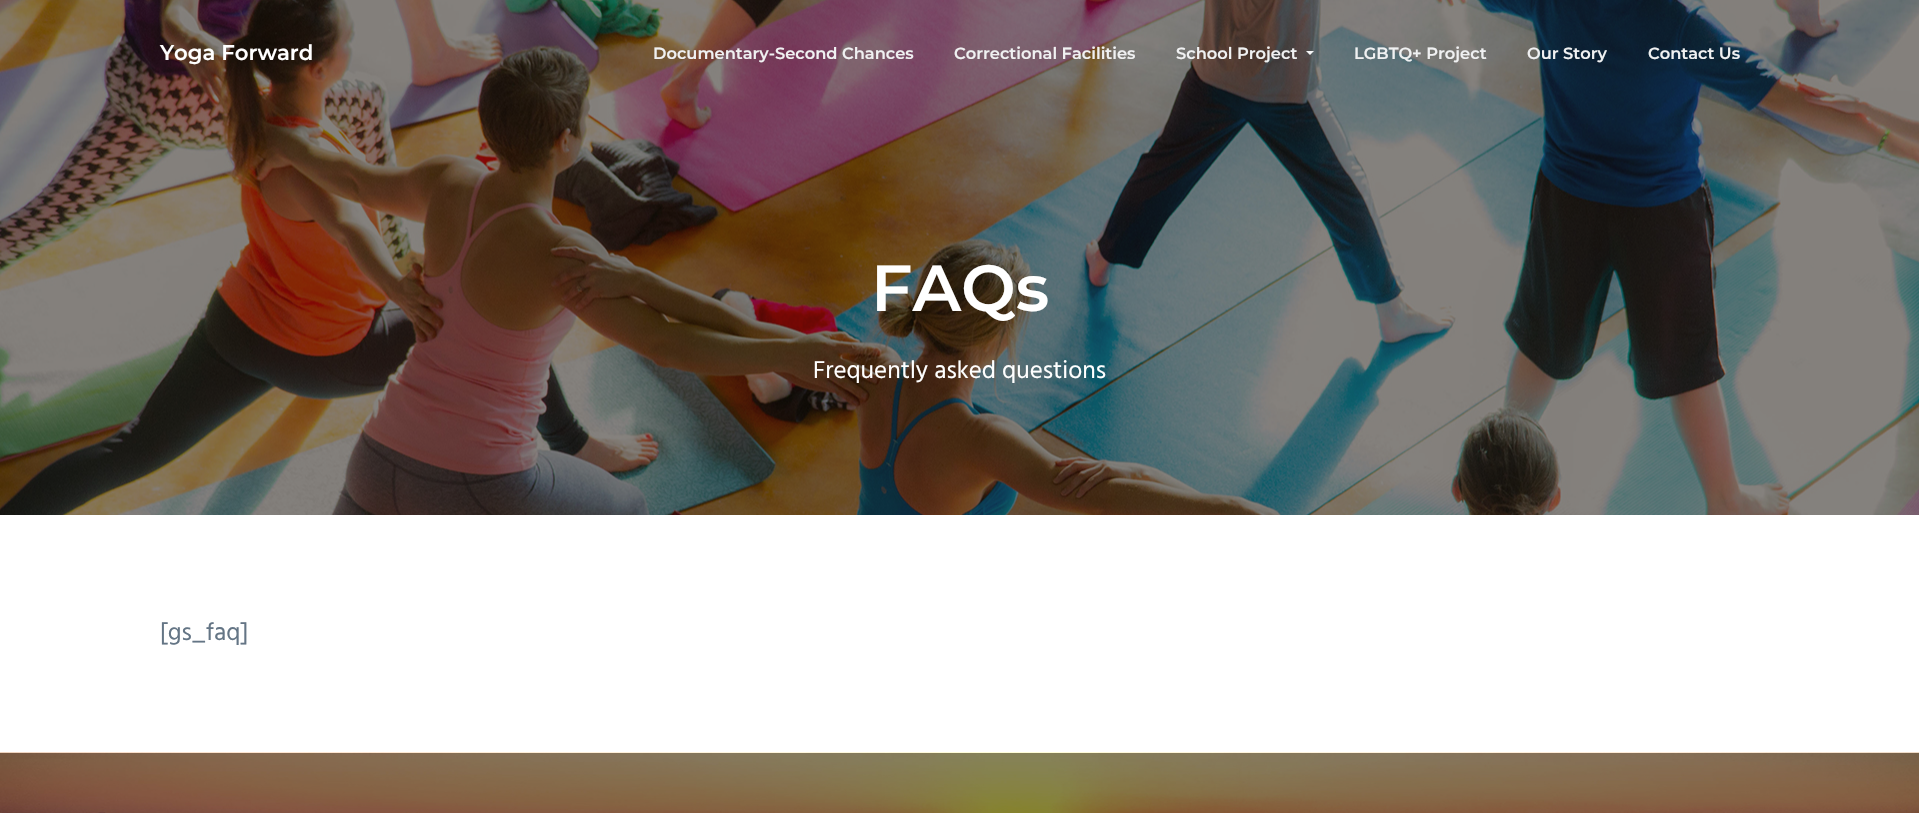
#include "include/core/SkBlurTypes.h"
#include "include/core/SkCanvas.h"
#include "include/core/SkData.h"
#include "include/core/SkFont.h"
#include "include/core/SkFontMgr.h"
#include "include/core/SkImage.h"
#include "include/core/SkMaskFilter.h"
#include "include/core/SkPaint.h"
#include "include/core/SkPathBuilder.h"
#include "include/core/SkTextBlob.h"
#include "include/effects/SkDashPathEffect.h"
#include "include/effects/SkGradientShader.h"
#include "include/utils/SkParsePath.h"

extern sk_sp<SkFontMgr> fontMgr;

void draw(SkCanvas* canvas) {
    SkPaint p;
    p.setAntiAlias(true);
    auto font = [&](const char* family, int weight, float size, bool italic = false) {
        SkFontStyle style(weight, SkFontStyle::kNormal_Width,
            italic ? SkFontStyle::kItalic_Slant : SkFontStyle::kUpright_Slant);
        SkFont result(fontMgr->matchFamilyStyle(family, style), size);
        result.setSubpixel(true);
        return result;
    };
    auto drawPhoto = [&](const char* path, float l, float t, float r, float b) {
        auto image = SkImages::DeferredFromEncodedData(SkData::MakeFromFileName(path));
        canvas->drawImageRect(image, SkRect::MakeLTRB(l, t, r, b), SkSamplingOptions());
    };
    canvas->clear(0xFFFFFFFF);
    drawPhoto("media/1.png", 0, 0, 1919, 515);
    auto font1 = font("Montserrat", 100, 21.25f);
    p.setColor(0xFFFFFFFF);
    canvas->drawString("Yoga Forward", 160, 60, font1, p);
    auto font2 = font("Montserrat", 100, 16.25f);
    p.setColor(0xFFF0F1F2);
    {
        const struct { const char* s; float x, y; } items[] = {
            {"Documentary-Second Chances", 653, 59},
            {"Correctional Facilities", 954, 59},
            {"School Project", 1176, 59},
        };
        for (auto [s, x, y] : items) {
            canvas->drawString(s, x, y, font2, p);
        }
    }
    p.setColor(0xFFF6F7F8);
    canvas->drawPath(SkPathBuilder().moveTo(1306, 51).lineTo(1314, 51).lineTo(1310, 55).close().detach(), p);
    p.setColor(0xFFF0F1F2);
    {
        const struct { const char* s; float x, y; } items[] = {
            {"LGBTQ+ Project", 1354, 59},
            {"Our Story", 1527, 59},
            {"Contact Us", 1648, 59},
        };
        for (auto [s, x, y] : items) {
            canvas->drawString(s, x, y, font2, p);
        }
    }
    auto font3 = font("Montserrat", 100, 65);
    p.setColor(0xFFFFFFFF);
    canvas->drawString("FAQs", 871, 311, font3, p);
    auto font4 = font("Hind", 400, 25);
    canvas->drawString("Frequently asked questions", 813, 378, font4, p);
    p.setColor(0xFF647585);
    canvas->drawString("[gs_faq]", 160, 640, font4, p);
    drawPhoto("media/2.png", 0, 752, 1919, 813);
}
